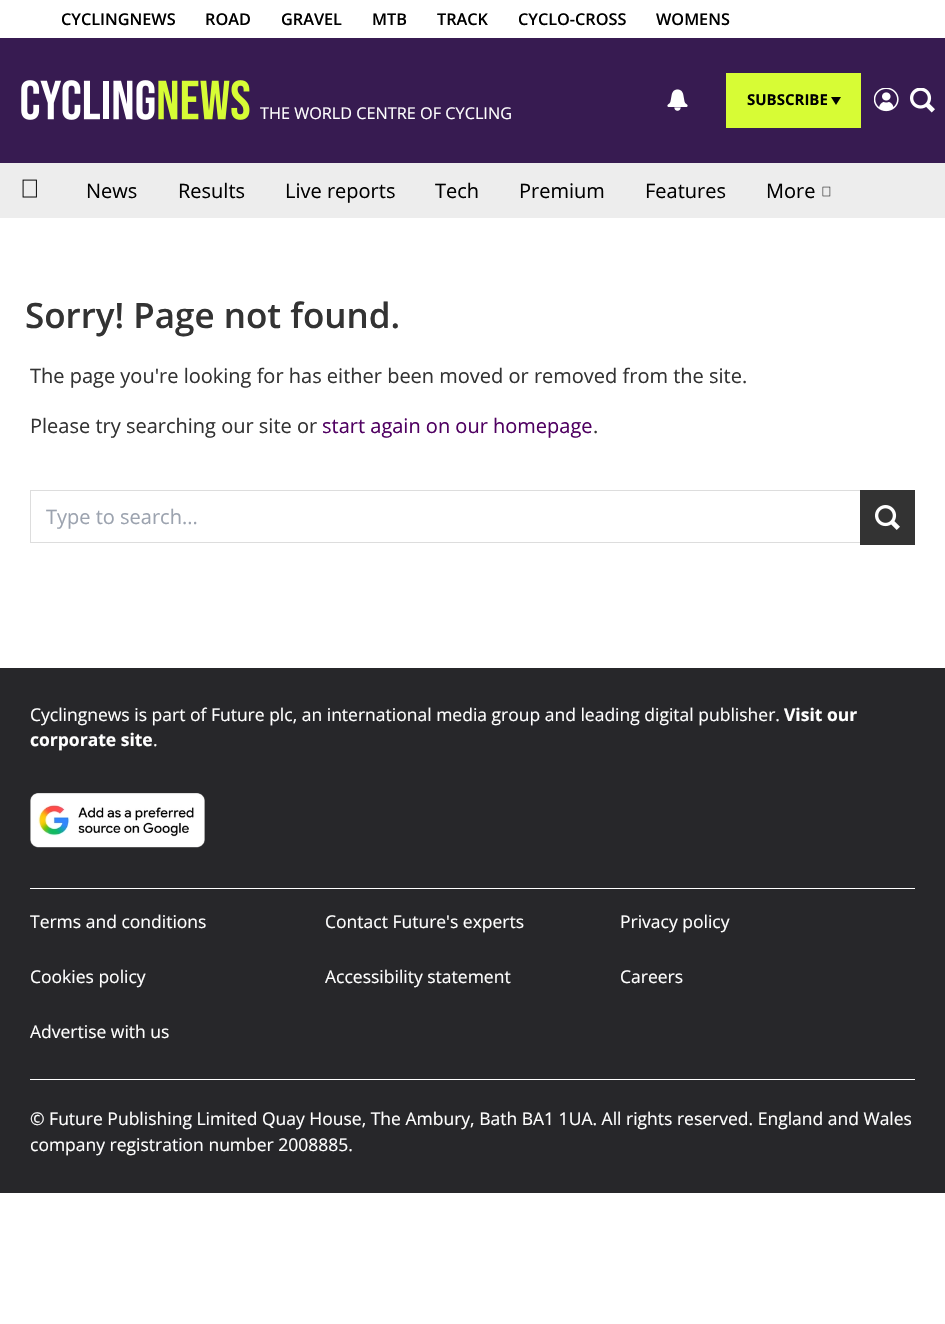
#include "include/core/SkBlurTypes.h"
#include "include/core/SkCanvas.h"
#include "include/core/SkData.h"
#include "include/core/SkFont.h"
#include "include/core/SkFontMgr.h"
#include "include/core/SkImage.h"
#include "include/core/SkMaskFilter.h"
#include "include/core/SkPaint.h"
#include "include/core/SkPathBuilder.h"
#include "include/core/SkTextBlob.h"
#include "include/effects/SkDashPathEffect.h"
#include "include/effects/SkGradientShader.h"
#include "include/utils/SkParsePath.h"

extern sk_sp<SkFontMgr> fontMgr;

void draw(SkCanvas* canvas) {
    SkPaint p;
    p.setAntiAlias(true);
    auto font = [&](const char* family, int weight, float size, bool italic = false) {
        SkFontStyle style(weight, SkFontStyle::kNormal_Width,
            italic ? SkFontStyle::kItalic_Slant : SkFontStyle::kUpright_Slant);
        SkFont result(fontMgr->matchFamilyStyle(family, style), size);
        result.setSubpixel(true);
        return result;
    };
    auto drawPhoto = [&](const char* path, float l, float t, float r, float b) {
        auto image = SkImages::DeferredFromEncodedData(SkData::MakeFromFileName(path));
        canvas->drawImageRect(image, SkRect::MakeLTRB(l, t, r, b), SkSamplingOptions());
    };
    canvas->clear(0xFFFFFFFF);
    auto font1 = font("Open Sans", 600, 16.25f);
    p.setColor(0xFF000000);
    {
        const struct { const char* s; float x, y; } items[] = {
            {"CYCLINGNEWS", 61, 25},
            {"ROAD", 205, 25},
            {"GRAVEL", 281, 25},
            {"MTB", 372, 25},
            {"TRACK", 437, 25},
            {"CYCLO-CROSS", 518, 25},
            {"WOMENS", 656, 25},
        };
        for (auto [s, x, y] : items) {
            canvas->drawString(s, x, y, font1, p);
        }
    }
    p.setColor(0xFF371B51);
    canvas->drawRect(SkRect::MakeLTRB(0, 38, 945, 163), p);
    drawPhoto("media/1.png", 667, 89, 688, 111);
    p.setColor(0xFFD7FC35);
    canvas->drawRect(SkRect::MakeLTRB(726, 73, 861, 128), p);
    auto font2 = font("Open Sans", 700, 15);
    p.setColor(0xFF000000);
    canvas->drawString("SUBSCRIBE", 747, 105, font2, p);
    canvas->drawPath(SkPathBuilder().moveTo(841, 97).lineTo(836, 105).lineTo(831, 97).close().detach(), p);
    drawPhoto("media/2.png", 874, 88, 899, 112);
    drawPhoto("media/3.png", 910, 88, 935, 113);
    drawPhoto("media/4.png", 21, 80, 250, 120);
    auto font3 = font("Open Sans", 400, 16.25f);
    p.setColor(0xFFFFFFFF);
    canvas->drawString("THE WORLD CENTRE OF CYCLING", 260, 119, font3, p);
    p.setColor(0xFFEDEDED);
    canvas->drawRect(SkRect::MakeLTRB(0, 163, 945, 218), p);
    drawPhoto("media/5.png", 22, 179, 37, 198);
    auto font4 = font("Open Sans", 400, 20);
    p.setColor(0xFF000000);
    {
        const struct { const char* s; float x, y; } items[] = {
            {"News", 86, 198},
            {"Results", 178, 198},
            {"Live reports", 285, 198},
            {"Tech", 435, 198},
            {"Premium", 519, 198},
            {"Features", 645, 198},
            {"More", 766, 198},
        };
        for (auto [s, x, y] : items) {
            canvas->drawString(s, x, y, font4, p);
        }
    }
    drawPhoto("media/6.png", 822, 186, 831, 197);
    auto font5 = font("Open Sans", 600, 35);
    p.setColor(0xFF333333);
    canvas->drawString("Sorry! Page not found.", 25, 328, font5, p);
    canvas->drawString("The page you're looking for has either been moved or removed from the site.", 30, 383, font4, p);
    canvas->drawString("Please try searching our site or", 30, 433, font4, p);
    p.setColor(0xFF4F0061);
    canvas->drawString("start again on our homepage", 322, 433, font4, p);
    p.setColor(0xFF333333);
    canvas->drawString(".", 593, 433, font4, p);
    p.setStyle(SkPaint::kStroke_Style);
    p.setStrokeWidth(1);
    p.setColor(0xFFDDDDDD);
    canvas->drawRect(SkRect::MakeLTRB(30.5f, 490.5f, 914.5f, 542.5f), p);
    p.setStyle(SkPaint::kFill_Style);
    p.setColor(0xFF9CA3AF);
    canvas->drawString("Type to search...", 46, 524, font4, p);
    p.setColor(0xFF333333);
    canvas->drawRect(SkRect::MakeLTRB(860, 490, 915, 545), p);
    drawPhoto("media/7.png", 875, 505, 900, 530);
    p.setColor(0xFF27272A);
    canvas->drawRect(SkRect::MakeLTRB(0, 668, 945, 1193), p);
    auto font6 = font("Open Sans", 400, 17.5f);
    p.setColor(0xFFFFFFFF);
    canvas->drawString("Cyclingnews is part of Future plc, an international media group and leading digital publisher.", 30, 721, font6, p);
    auto font7 = font("Open Sans", 700, 17.5f);
    canvas->drawString("Visit our", 784, 721, font7, p);
    canvas->drawString("corporate site", 30, 746, font7, p);
    canvas->drawString(".", 153, 746, font6, p);
    drawPhoto("media/8.png", 30, 793, 205, 848);
    canvas->drawRect(SkRect::MakeLTRB(30, 888, 915, 889), p);
    canvas->drawRect(SkRect::MakeLTRB(30, 1079, 915, 1080), p);
    {
        const struct { const char* s; float x, y; } items[] = {
            {"Terms and conditions", 30, 928},
            {"Contact Future's experts", 325, 928},
            {"Privacy policy", 620, 928},
            {"Cookies policy", 30, 983},
            {"Accessibility statement", 325, 983},
            {"Careers", 620, 983},
            {"Advertise with us", 30, 1038},
            {"© Future Publishing Limited Quay House, The Ambury, Bath BA1 1UA. All rights reserved. England and Wales", 30, 1125},
            {"company registration number 2008885.", 30, 1151},
        };
        for (auto [s, x, y] : items) {
            canvas->drawString(s, x, y, font6, p);
        }
    }
}
